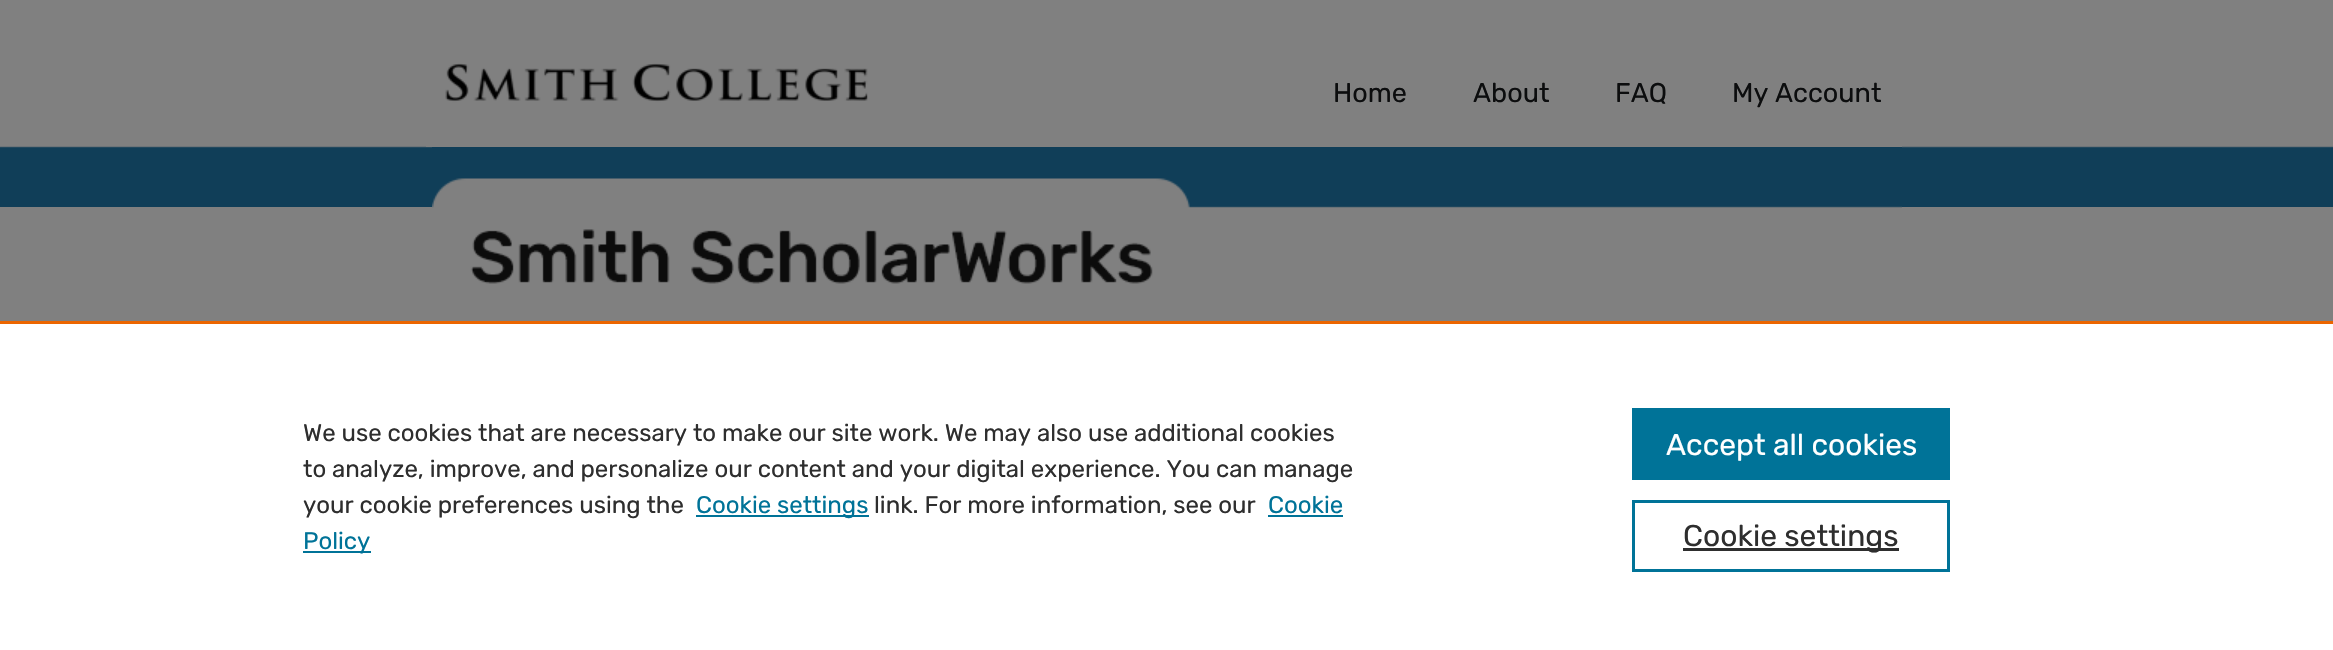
#include "include/core/SkBlurTypes.h"
#include "include/core/SkCanvas.h"
#include "include/core/SkData.h"
#include "include/core/SkFont.h"
#include "include/core/SkFontMgr.h"
#include "include/core/SkImage.h"
#include "include/core/SkMaskFilter.h"
#include "include/core/SkPaint.h"
#include "include/core/SkPathBuilder.h"
#include "include/core/SkTextBlob.h"
#include "include/effects/SkDashPathEffect.h"
#include "include/effects/SkGradientShader.h"
#include "include/utils/SkParsePath.h"

extern sk_sp<SkFontMgr> fontMgr;

void draw(SkCanvas* canvas) {
    SkPaint p;
    p.setAntiAlias(true);
    auto font = [&](const char* family, int weight, float size, bool italic = false) {
        SkFontStyle style(weight, SkFontStyle::kNormal_Width,
            italic ? SkFontStyle::kItalic_Slant : SkFontStyle::kUpright_Slant);
        SkFont result(fontMgr->matchFamilyStyle(family, style), size);
        result.setSubpixel(true);
        return result;
    };
    auto drawPhoto = [&](const char* path, float l, float t, float r, float b) {
        auto image = SkImages::DeferredFromEncodedData(SkData::MakeFromFileName(path));
        canvas->drawImageRect(image, SkRect::MakeLTRB(l, t, r, b), SkSamplingOptions());
    };
    canvas->clear(0xFF808080);
    drawPhoto("media/1.png", 0, 146, 2333, 207);
    p.setColor(0xFF808080);
    canvas->drawRect(SkRect::MakeLTRB(432, 146, 1902, 147), p);
    drawPhoto("media/2.png", 426, 63, 868, 147);
    auto font1 = font("Rubik", 400, 27);
    p.setColor(0xFF0C0D0E);
    {
        const struct { const char* s; float x, y; } items[] = {
            {"Home", 1333, 102},
            {"About", 1473, 102},
            {"FAQ", 1615, 102},
            {"My Account", 1732, 102},
        };
        for (auto [s, x, y] : items) {
            canvas->drawString(s, x, y, font1, p);
        }
    }
    drawPhoto("media/3.png", 432, 147, 1902, 321);
    p.setColor(0xFFFFFFFF);
    canvas->drawRect(SkRect::MakeLTRB(0, 324, 2333, 650), p);
    p.setColor(0xFFEB6500);
    canvas->drawRect(SkRect::MakeLTRB(0, 321, 2333, 324), p);
    auto font2 = font("Rubik", 400, 24);
    p.setColor(0xFF2E2E2E);
    {
        const struct { const char* s; float x, y; } items[] = {
            {"We use cookies that are necessary to make our site work. We may also use additional cookies", 303, 441},
            {"to analyze, improve, and personalize our content and your digital experience. You can manage", 303, 477},
            {"your cookie preferences using the", 303, 513},
        };
        for (auto [s, x, y] : items) {
            canvas->drawString(s, x, y, font2, p);
        }
    }
    p.setColor(0xFF007398);
    canvas->drawRect(SkRect::MakeLTRB(696, 515, 869, 517), p);
    canvas->drawString("Cookie settings", 696, 513, font2, p);
    p.setColor(0xFF2E2E2E);
    canvas->drawString("link. For more information, see our", 874, 513, font2, p);
    p.setColor(0xFF007398);
    canvas->drawString("Cookie", 1268, 513, font2, p);
    canvas->drawRect(SkRect::MakeLTRB(1268, 515, 1343, 517), p);
    canvas->drawRect(SkRect::MakeLTRB(303, 551, 371, 553), p);
    canvas->drawString("Policy", 303, 549, font2, p);
    canvas->drawRect(SkRect::MakeLTRB(1632, 408, 1950, 480), p);
    auto font3 = font("Rubik", 400, 30);
    p.setColor(0xFFFFFFFF);
    canvas->drawString("Accept all cookies", 1666, 455, font3, p);
    p.setStyle(SkPaint::kStroke_Style);
    p.setStrokeWidth(3);
    p.setColor(0xFF007398);
    canvas->drawRect(SkRect::MakeLTRB(1633.5f, 501.5f, 1948.5f, 570.5f), p);
    p.setStyle(SkPaint::kFill_Style);
    p.setColor(0xFF2E2E2E);
    canvas->drawRect(SkRect::MakeLTRB(1683, 548, 1899, 551), p);
    canvas->drawString("Cookie settings", 1683, 546, font3, p);
}
